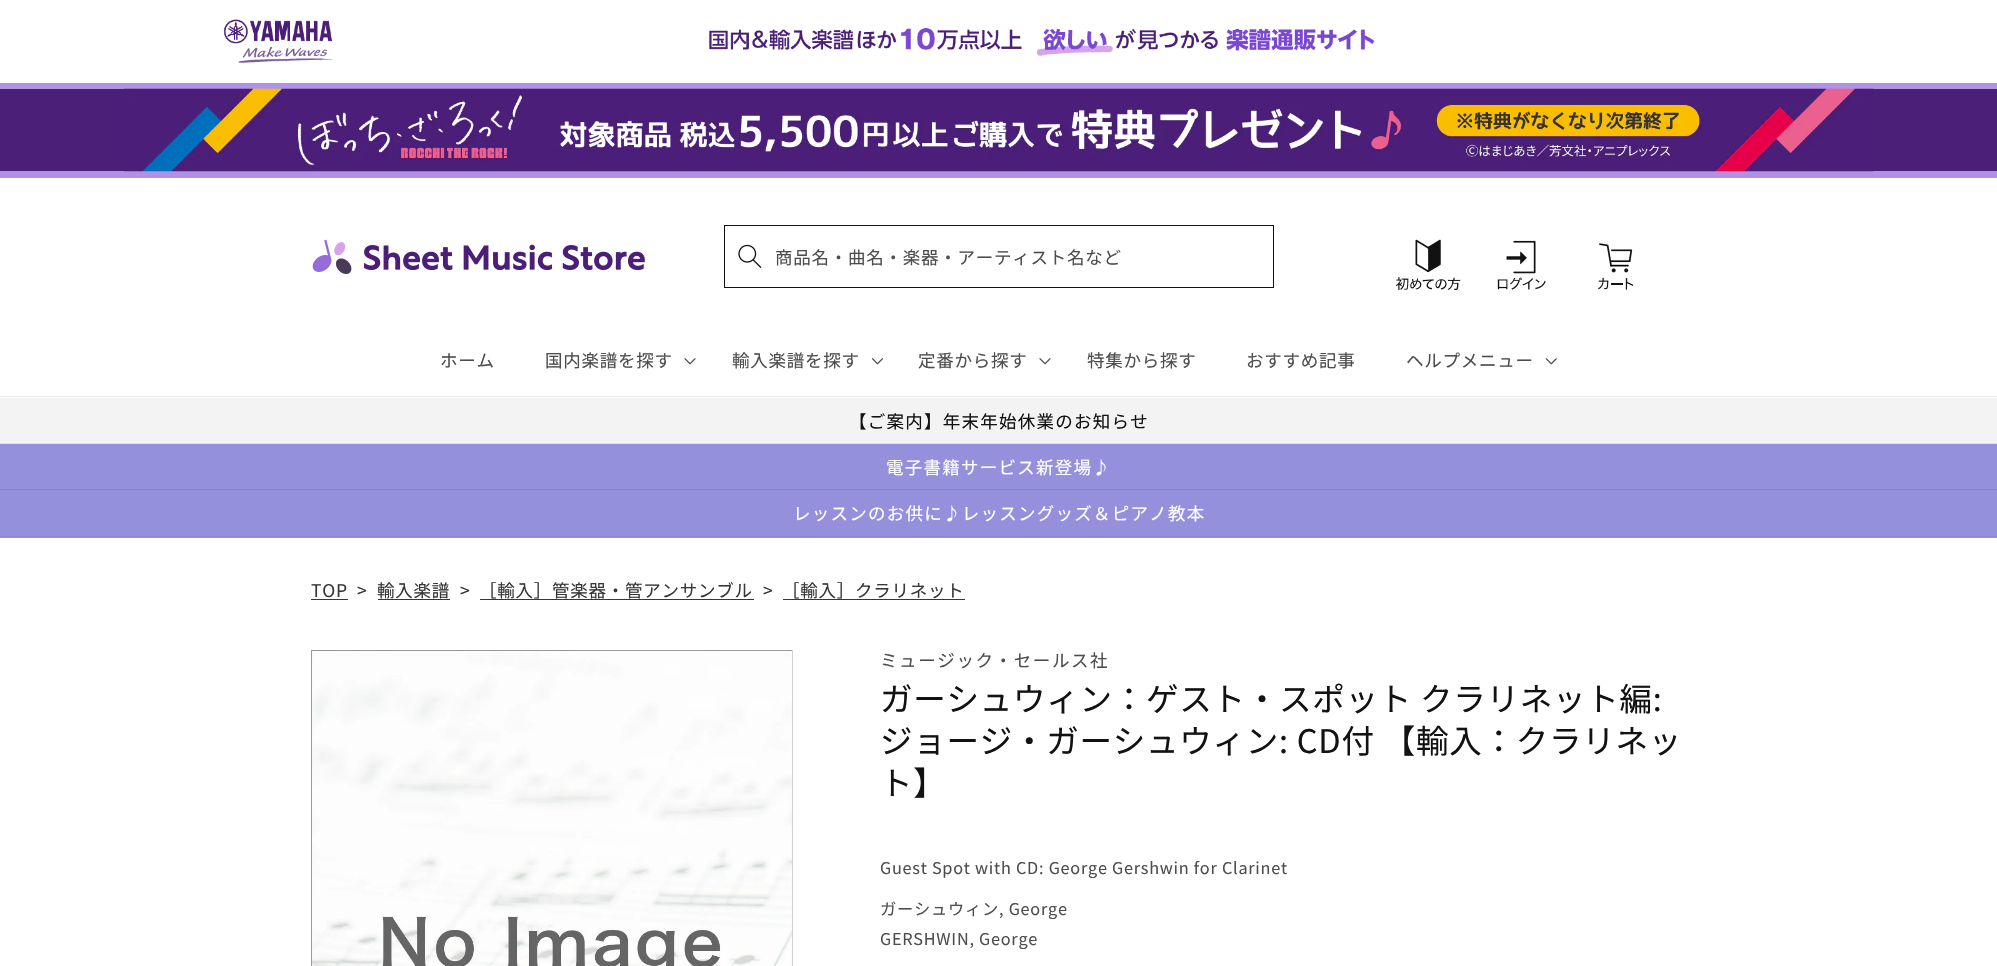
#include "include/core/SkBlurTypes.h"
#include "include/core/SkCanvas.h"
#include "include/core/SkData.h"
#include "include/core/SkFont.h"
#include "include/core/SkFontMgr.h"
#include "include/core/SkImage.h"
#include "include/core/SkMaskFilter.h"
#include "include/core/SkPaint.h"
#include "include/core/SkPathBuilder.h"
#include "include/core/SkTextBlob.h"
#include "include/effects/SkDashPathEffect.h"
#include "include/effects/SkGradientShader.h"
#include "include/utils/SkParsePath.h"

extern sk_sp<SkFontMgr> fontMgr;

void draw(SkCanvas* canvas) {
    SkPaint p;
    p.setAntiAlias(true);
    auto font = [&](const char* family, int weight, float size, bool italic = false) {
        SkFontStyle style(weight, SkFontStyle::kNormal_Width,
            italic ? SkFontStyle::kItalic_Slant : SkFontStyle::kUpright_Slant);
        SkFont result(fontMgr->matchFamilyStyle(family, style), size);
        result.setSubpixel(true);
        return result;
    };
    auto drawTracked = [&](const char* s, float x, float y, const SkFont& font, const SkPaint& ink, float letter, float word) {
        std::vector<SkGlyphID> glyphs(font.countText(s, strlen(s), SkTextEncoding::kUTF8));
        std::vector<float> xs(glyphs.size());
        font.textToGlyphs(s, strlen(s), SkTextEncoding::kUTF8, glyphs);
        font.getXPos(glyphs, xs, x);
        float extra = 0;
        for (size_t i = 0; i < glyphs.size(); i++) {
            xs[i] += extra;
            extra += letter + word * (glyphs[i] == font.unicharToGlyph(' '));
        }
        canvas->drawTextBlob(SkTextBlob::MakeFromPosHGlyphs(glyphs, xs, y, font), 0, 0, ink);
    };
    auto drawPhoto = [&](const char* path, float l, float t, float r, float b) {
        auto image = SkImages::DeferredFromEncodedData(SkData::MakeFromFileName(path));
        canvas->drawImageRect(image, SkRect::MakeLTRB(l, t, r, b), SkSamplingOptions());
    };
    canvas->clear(0xFFFFFFFF);
    p.setColor(0xFFB091E4);
    canvas->drawRect(SkRect::MakeLTRB(0, 83, 1997, 89), p);
    drawPhoto("media/1.png", 223, 19, 1375, 63);
    p.setColor(0xFF4B1E78);
    canvas->drawRect(SkRect::MakeLTRB(0, 89, 1997, 171), p);
    p.setColor(0xFFB091E4);
    canvas->drawRect(SkRect::MakeLTRB(0, 171, 1997, 178), p);
    drawPhoto("media/2.png", 123, 88, 1874, 172);
    p.setColor(0xFFECECEC);
    canvas->drawRect(SkRect::MakeLTRB(0, 396, 1997, 397), p);
    drawPhoto("media/3.png", 312, 239, 645, 274);
    p.setStyle(SkPaint::kStroke_Style);
    p.setStrokeWidth(1);
    p.setColor(0xFF121212);
    canvas->drawRect(SkRect::MakeLTRB(724.5f, 225.5f, 1273.5f, 287.5f), p);
    drawPhoto("media/4.png", 738, 244, 762, 268);
    auto font1 = font("Noto Sans JP", 400, 17.5f);
    p.setStyle(SkPaint::kFill_Style);
    p.setColor(0xFF4D4D4D);
    drawTracked("商品名・曲名・楽器・アーティスト名など", 775, 264, font1, p, 0.75f, 0);
    drawPhoto("media/5.png", 1396, 239, 1461, 290);
    drawPhoto("media/6.png", 1497, 240, 1546, 290);
    drawPhoto("media/7.png", 1598, 243, 1634, 290);
    drawTracked("ホーム", 440, 367, font1, p, 0.75f, 0);
    drawTracked("国内楽譜を探す", 545, 367, font1, p, 0.75f, 0);
    drawPhoto("media/8.png", 684, 358, 696, 365);
    drawTracked("輸入楽譜を探す", 732, 367, font1, p, 0.75f, 0);
    drawPhoto("media/9.png", 871, 358, 884, 365);
    drawTracked("定番から探す", 918, 367, font1, p, 0.75f, 0);
    drawPhoto("media/8.png", 1039, 358, 1051, 365);
    {
        const struct { const char* s; float x, y; } items[] = {
            {"特集から探す", 1087, 367},
            {"おすすめ記事", 1246, 367},
            {"ヘルプメニュー", 1406, 367},
        };
        for (auto [s, x, y] : items) {
            drawTracked(s, x, y, font1, p, 0.75f, 0);
        }
    }
    drawPhoto("media/10.png", 1545, 358, 1557, 365);
    p.setColor(0xFFF3F3F3);
    canvas->drawRect(SkRect::MakeLTRB(0, 398, 1997, 443), p);
    p.setColor(0xFFE1E1E1);
    canvas->drawRect(SkRect::MakeLTRB(0, 443, 1997, 444), p);
    p.setColor(0xFF121212);
    drawTracked("【ご案内】年末年始休業のお知らせ", 849, 428, font1, p, 1.25f, 0);
    p.setColor(0xFF9590DB);
    canvas->drawRect(SkRect::MakeLTRB(0, 444, 1997, 489), p);
    p.setColor(0xFF8B86CB);
    canvas->drawRect(SkRect::MakeLTRB(0, 489, 1997, 490), p);
    p.setColor(0xFFFFFFFF);
    drawTracked("電子書籍サービス新登場♪", 886, 474, font1, p, 1.25f, 0);
    p.setColor(0xFF9590DB);
    canvas->drawRect(SkRect::MakeLTRB(0, 490, 1997, 538), p);
    p.setColor(0xFF8B86CB);
    canvas->drawRect(SkRect::MakeLTRB(0, 536, 1997, 537), p);
    p.setColor(0xFFFFFFFF);
    drawTracked("レッスンのお供に♪レッスングッズ＆ピアノ教本", 793, 520, font1, p, 1.25f, 0);
    p.setColor(0xFF363636);
    drawTracked("TOP", 311, 597, font1, p, 0.75f, 0);
    canvas->drawRect(SkRect::MakeLTRB(311, 599, 348, 600), p);
    drawTracked(">", 357, 597, font1, p, 0.75f, 0);
    drawTracked("輸入楽譜", 377, 597, font1, p, 0.75f, 0);
    canvas->drawRect(SkRect::MakeLTRB(378, 599, 450, 600), p);
    drawTracked(">", 460, 597, font1, p, 0.75f, 0);
    drawTracked("［輸入］管楽器・管アンサンブル", 479, 597, font1, p, 0.75f, 0);
    canvas->drawRect(SkRect::MakeLTRB(480, 599, 754, 600), p);
    drawTracked(">", 763, 597, font1, p, 0.75f, 0);
    drawTracked("［輸入］クラリネット", 782, 597, font1, p, 0.75f, 0);
    canvas->drawRect(SkRect::MakeLTRB(783, 599, 965, 600), p);
    drawPhoto("media/11.png", 311, 650, 793, 966);
    p.setColor(0xFF4D4D4D);
    drawTracked("ミュージック・セールス社", 880, 667, font1, p, 1.6f, 0);
    auto font2 = font("Noto Sans JP", 400, 32.5f);
    p.setColor(0xFF121212);
    {
        const struct { const char* s; float x, y; } items[] = {
            {"ガーシュウィン：ゲスト・スポット クラリネット編:", 880, 711},
            {"ジョージ・ガーシュウィン: CD付 【輸入：クラリネッ", 880, 753},
            {"ト】", 880, 795},
        };
        for (auto [s, x, y] : items) {
            drawTracked(s, x, y, font2, p, 0.75f, 0);
        }
    }
    auto font3 = font("Noto Sans JP", 400, 16.25f);
    p.setColor(0xFF4D4D4D);
    {
        const struct { const char* s; float x, y; } items[] = {
            {"Guest Spot with CD: George Gershwin for Clarinet", 880, 874},
            {"ガーシュウィン, George", 880, 915},
            {"GERSHWIN, George", 880, 945},
        };
        for (auto [s, x, y] : items) {
            drawTracked(s, x, y, font3, p, 0.75f, 0);
        }
    }
}
